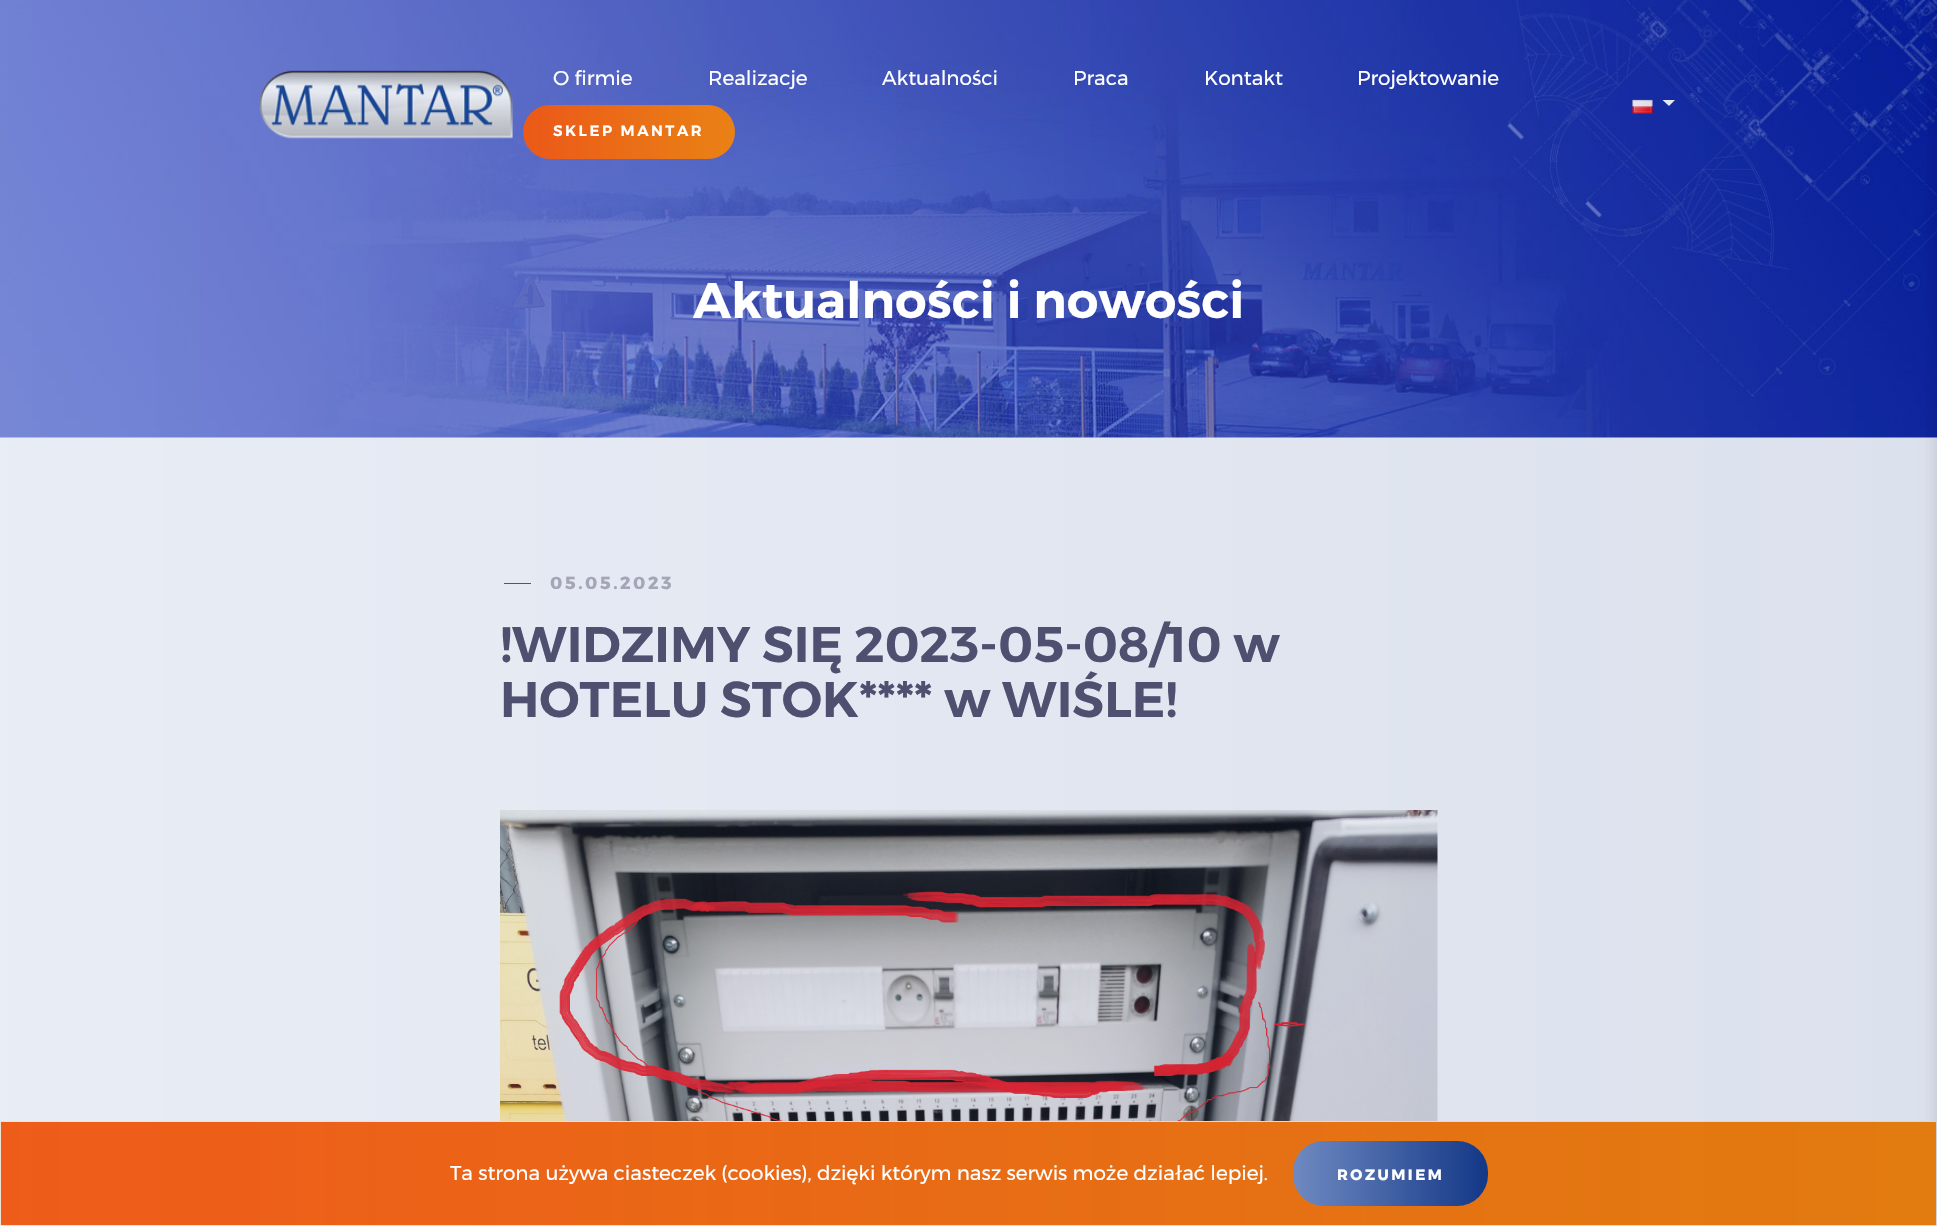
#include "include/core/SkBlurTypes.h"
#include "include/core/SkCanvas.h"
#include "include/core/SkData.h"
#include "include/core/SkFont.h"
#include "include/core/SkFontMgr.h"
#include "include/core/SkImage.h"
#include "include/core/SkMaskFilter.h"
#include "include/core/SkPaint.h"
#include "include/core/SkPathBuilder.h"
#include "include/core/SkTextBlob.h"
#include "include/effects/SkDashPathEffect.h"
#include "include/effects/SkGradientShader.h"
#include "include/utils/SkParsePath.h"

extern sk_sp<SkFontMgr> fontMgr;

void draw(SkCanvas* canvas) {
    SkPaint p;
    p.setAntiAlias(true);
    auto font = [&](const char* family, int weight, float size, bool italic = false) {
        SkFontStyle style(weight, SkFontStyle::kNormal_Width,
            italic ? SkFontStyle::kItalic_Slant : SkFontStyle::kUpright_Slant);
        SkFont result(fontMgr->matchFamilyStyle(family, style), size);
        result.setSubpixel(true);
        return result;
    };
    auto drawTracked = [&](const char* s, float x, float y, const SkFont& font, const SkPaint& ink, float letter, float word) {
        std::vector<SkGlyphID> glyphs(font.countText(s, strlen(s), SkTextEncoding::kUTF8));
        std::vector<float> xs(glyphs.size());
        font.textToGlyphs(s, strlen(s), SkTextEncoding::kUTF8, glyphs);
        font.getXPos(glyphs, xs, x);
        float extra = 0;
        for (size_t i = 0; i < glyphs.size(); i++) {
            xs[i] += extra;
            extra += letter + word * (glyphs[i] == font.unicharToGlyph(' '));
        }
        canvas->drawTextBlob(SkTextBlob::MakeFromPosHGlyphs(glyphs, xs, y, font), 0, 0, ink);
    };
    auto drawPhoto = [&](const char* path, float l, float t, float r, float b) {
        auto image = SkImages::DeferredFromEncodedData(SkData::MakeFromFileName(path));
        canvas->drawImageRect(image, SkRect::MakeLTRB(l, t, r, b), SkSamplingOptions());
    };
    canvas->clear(0xFFFFFFFF);
    drawPhoto("media/3.png", 0, 0, 1937, 438);
    drawPhoto("media/1.png", 259, 70, 513, 139);
    {
        const SkColor colors[] = {0xFFFF5402, 0xFFFF8500};
        const float stops[] = {0, 1};
        const SkPoint ends[] = {{523, 132}, {735, 132}};
        p.setShader(SkGradientShader::MakeLinear(ends, colors, stops, 2, SkTileMode::kClamp));
        p.setAlpha(255);
    }
    canvas->drawRoundRect(SkRect::MakeLTRB(523, 105, 735, 159), 27, 27, p);
    drawPhoto("media/2.png", 1632, 99, 1653, 114);
    p.setShader(nullptr);
    p.setColor(0xFFFFFFFF);
    canvas->drawPath(SkPathBuilder().moveTo(1662.5f, 100).lineTo(1675, 100).lineTo(1669, 106).close().detach(), p);
    p.setColor(0xFFF9FAFC);
    canvas->drawRect(SkRect::MakeLTRB(0, 438, 1937, 1225), p);
    p.setColor(0x26000000);
    p.setMaskFilter(SkMaskFilter::MakeBlur(kNormal_SkBlurStyle, 9.5f));
    canvas->drawRect(SkRect::MakeLTRB(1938, 0, 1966, 1226), p);
    p.setMaskFilter(nullptr);
    p.setColor(0xFF4F4F6F);
    canvas->drawRect(SkRect::MakeLTRB(504, 583, 531, 584), p);
    drawPhoto("media/4.png", 500, 810, 1438, 1121);
    {
        const SkColor colors[] = {0xFFFF5402, 0xFFFF8500};
        const float stops[] = {0, 1};
        const SkPoint ends[] = {{1.2f, 1174}, {1936, 1174}};
        p.setShader(SkGradientShader::MakeLinear(ends, colors, stops, 2, SkTileMode::kClamp));
        p.setAlpha(255);
    }
    canvas->drawRect(SkRect::MakeLTRB(1, 1122, 1936, 1225), p);
    p.setStyle(SkPaint::kStroke_Style);
    p.setStrokeWidth(1);
    p.setShader(nullptr);
    p.setColor(0xFFFBEED5);
    canvas->drawRect(SkRect::MakeLTRB(0.5f, 1121.5f, 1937.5f, 1225.5f), p);
    p.setStyle(SkPaint::kFill_Style);
    {
        const SkColor colors[] = {0xFF7891C7, 0xFF103585};
        const float stops[] = {0, 1};
        const SkPoint ends[] = {{1293, 1174}, {1488, 1174}};
        p.setShader(SkGradientShader::MakeLinear(ends, colors, stops, 2, SkTileMode::kClamp));
        p.setAlpha(255);
    }
    canvas->drawRoundRect(SkRect::MakeLTRB(1293, 1141, 1488, 1206), 31, 31, p);
    {
        const SkColor colors[] = {0x1F7891C7, 0x1F103585};
        const float stops[] = {0, 1};
        const SkPoint ends[] = {{0, 613}, {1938, 613}};
        p.setShader(SkGradientShader::MakeLinear(ends, colors, stops, 2, SkTileMode::kClamp));
        p.setAlpha(255);
    }
    canvas->drawRect(SkRect::MakeLTRB(0, 0, 1937, 1226), p);
    auto font1 = font("Montserrat", 400, 20);
    p.setShader(nullptr);
    p.setColor(0xFFFFFFFF);
    {
        const struct { const char* s; float x, y; } items[] = {
            {"O firmie", 553, 85},
            {"Realizacje", 708, 85},
            {"Aktualności", 882, 85},
            {"Praca", 1073, 85},
            {"Kontakt", 1204, 85},
            {"Projektowanie", 1357, 85},
        };
        for (auto [s, x, y] : items) {
            canvas->drawString(s, x, y, font1, p);
        }
    }
    auto font2 = font("Montserrat", 600, 15);
    drawTracked("SKLEP MANTAR", 553, 136, font2, p, 2.5f, 0);
    auto font3 = font("Montserrat", 600, 50);
    canvas->drawString("Aktualności i nowości", 693, 318, font3, p);
    auto font4 = font("Montserrat", 700, 17.5f);
    p.setColor(0xFFA4A5B6);
    drawTracked("05.05.2023", 550, 589, font4, p, 2.5f, 0);
    p.setColor(0xFF4F4F6F);
    canvas->drawString("!WIDZIMY SIĘ 2023-05-08/10 w", 500, 662, font3, p);
    canvas->drawString("HOTELU STOK**** w WIŚLE!", 500, 717, font3, p);
    p.setColor(0xFFFFFFFF);
    canvas->drawString("Ta strona używa ciasteczek (cookies), dzięki którym nasz serwis może działać lepiej.", 450, 1180, font1, p);
    auto font5 = font("Montserrat", 700, 15);
    drawTracked("ROZUMIEM", 1337, 1180, font5, p, 2.5f, 0);
}
